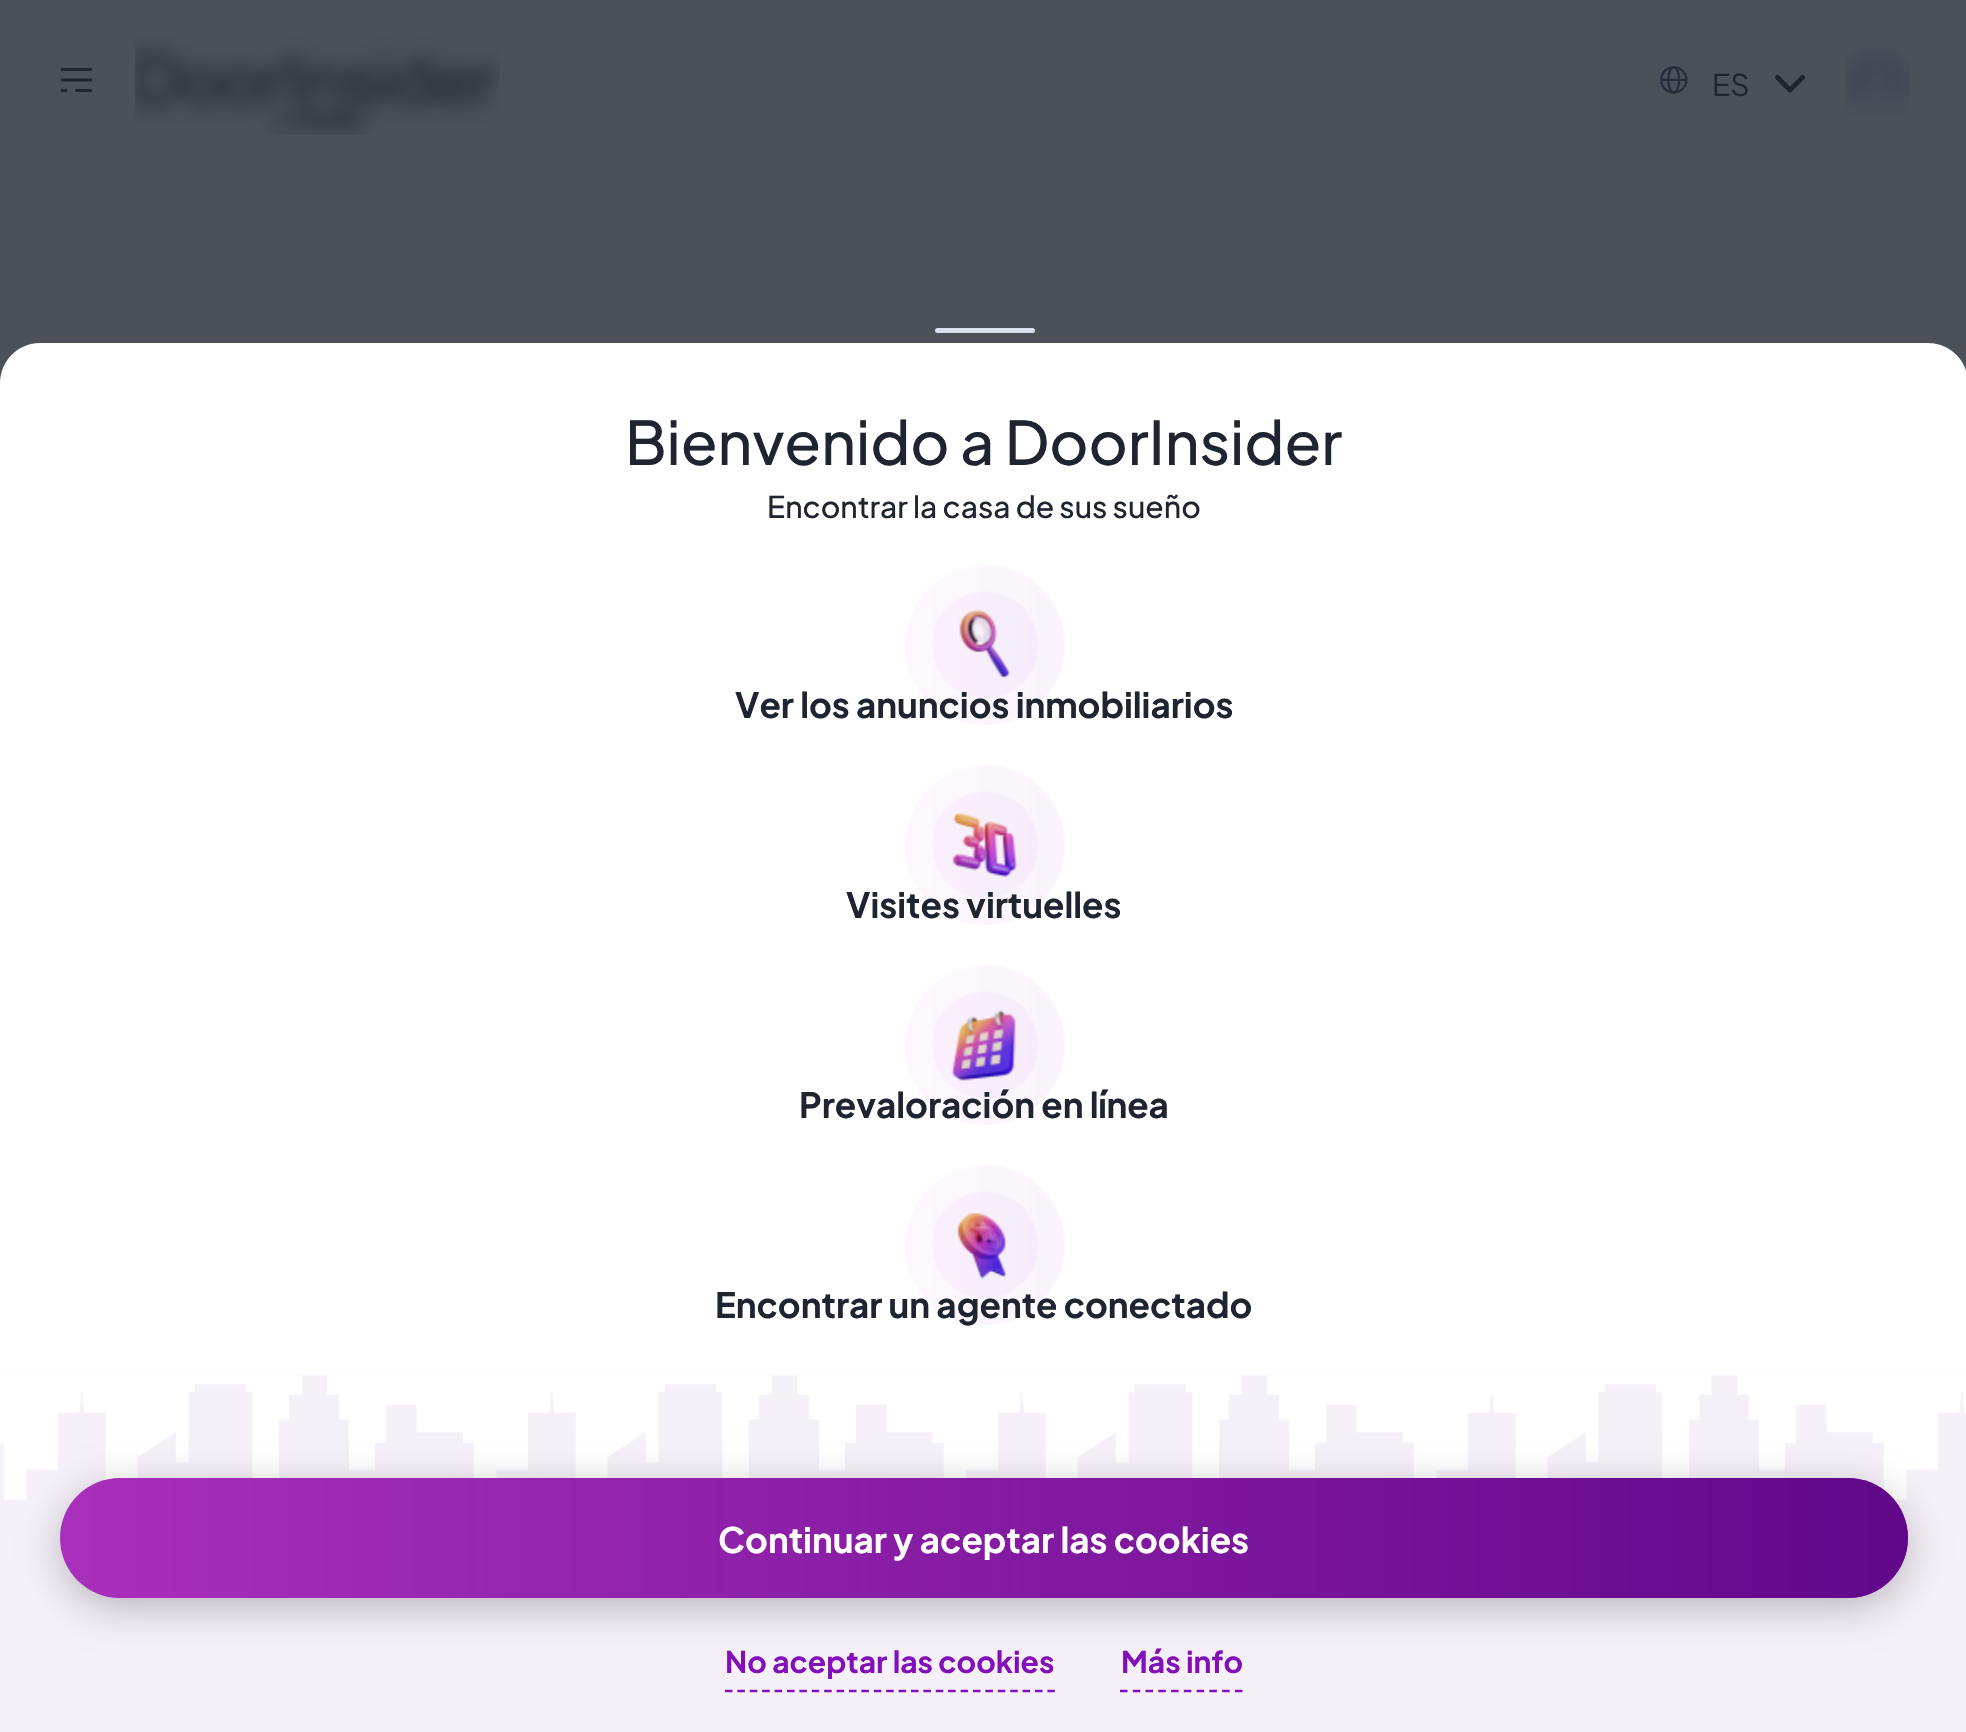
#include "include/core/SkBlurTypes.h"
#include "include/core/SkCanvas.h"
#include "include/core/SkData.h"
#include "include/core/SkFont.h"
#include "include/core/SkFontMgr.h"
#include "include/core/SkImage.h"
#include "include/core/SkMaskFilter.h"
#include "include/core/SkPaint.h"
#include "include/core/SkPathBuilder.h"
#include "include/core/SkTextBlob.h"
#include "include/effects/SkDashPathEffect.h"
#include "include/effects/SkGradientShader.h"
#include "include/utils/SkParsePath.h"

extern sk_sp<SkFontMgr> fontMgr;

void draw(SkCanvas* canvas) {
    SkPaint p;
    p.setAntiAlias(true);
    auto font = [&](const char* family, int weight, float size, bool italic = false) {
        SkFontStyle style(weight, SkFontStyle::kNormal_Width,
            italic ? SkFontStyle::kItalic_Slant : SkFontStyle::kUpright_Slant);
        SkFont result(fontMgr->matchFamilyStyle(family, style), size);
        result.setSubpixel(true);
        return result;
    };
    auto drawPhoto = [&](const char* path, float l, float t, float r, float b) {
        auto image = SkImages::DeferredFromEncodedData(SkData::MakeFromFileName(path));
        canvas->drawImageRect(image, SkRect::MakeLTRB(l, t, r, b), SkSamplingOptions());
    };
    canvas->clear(0xFF4B5059);
    p.setStyle(SkPaint::kStroke_Style);
    p.setStrokeWidth(2.8f);
    p.setStrokeCap(SkPaint::kRound_Cap);
    p.setColor(0xFF1E2430);
    canvas->drawPath(SkPathBuilder().moveTo(62, 80).lineTo(91, 80).moveTo(62, 69.5f).lineTo(91, 69.5f).moveTo(62, 90.5f).lineTo(66, 90.5f).moveTo(76.5f, 90.5f).lineTo(91, 90.5f).detach(), p);
    drawPhoto("media/1.png", 135, 36, 500, 135);
    drawPhoto("media/2.png", 1660, 66, 1688, 94);
    auto font1 = font("Plus Jakarta Sans", 400, 30);
    p.setStyle(SkPaint::kFill_Style);
    canvas->drawString("ES", 1712, 96, font1, p);
    p.setStyle(SkPaint::kStroke_Style);
    p.setStrokeWidth(5);
    p.setStrokeJoin(SkPaint::kRound_Join);
    canvas->drawPath(SkPathBuilder().moveTo(1777.5f, 77.5f).lineTo(1790, 90).lineTo(1802.5f, 77.5f).detach(), p);
    drawPhoto("media/3.png", 1845, 48, 1910, 115);
    p.setStyle(SkPaint::kFill_Style);
    p.setColor(0xFFFFFFFF);
    canvas->drawPath(SkPathBuilder().moveTo(40, 343).lineTo(1928, 343).cubicTo(1950, 343, 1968, 361, 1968, 383).lineTo(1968, 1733).lineTo(0, 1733).lineTo(0, 383).cubicTo(0, 361, 18, 343, 40, 343).close().detach(), p);
    drawPhoto("media/4.png", 0, 1374, 1966, 1732);
    p.setColor(0xFFD7E0EC);
    canvas->drawRoundRect(SkRect::MakeLTRB(935, 328, 1035, 333), 2.5f, 2.5f, p);
    auto font2 = font("Plus Jakarta Sans", 500, 60);
    p.setColor(0xFF1E2430);
    canvas->drawString("Bienvenido a DoorInsider", 625, 465, font2, p);
    auto font3 = font("Plus Jakarta Sans", 500, 30);
    canvas->drawString("Encontrar la casa de sus sueño", 767, 518, font3, p);
    drawPhoto("media/5.png", 905, 565, 1065, 725);
    auto font4 = font("Plus Jakarta Sans", 700, 35);
    canvas->drawString("Ver los anuncios inmobiliarios", 735, 718, font4, p);
    drawPhoto("media/6.png", 905, 765, 1065, 925);
    canvas->drawString("Visites virtuelles", 846, 918, font4, p);
    drawPhoto("media/7.png", 905, 965, 1065, 1125);
    canvas->drawString("Prevaloración en línea", 799, 1118, font4, p);
    drawPhoto("media/8.png", 905, 1165, 1065, 1325);
    canvas->drawString("Encontrar un agente conectado", 715, 1318, font4, p);
    p.setColor(0x3D000000);
    p.setMaskFilter(SkMaskFilter::MakeBlur(kNormal_SkBlurStyle, 20));
    canvas->drawRoundRect(SkRect::MakeLTRB(60, 1488, 1908, 1608), 60, 60, p);
    p.setMaskFilter(nullptr);
    p.setColor(0xFFA92FBB);
    canvas->drawRoundRect(SkRect::MakeLTRB(60, 1478, 1908, 1598), 60, 60, p);
    {
        const SkColor colors[] = {0xFF60078A, 0x0060078A};
        const float stops[] = {0, 1};
        const SkPoint ends[] = {{1908, 1538}, {60, 1538}};
        p.setShader(SkGradientShader::MakeLinear(ends, colors, stops, 2, SkTileMode::kClamp));
        p.setAlpha(255);
    }
    canvas->drawRoundRect(SkRect::MakeLTRB(60, 1478, 1908, 1598), 60, 60, p);
    p.setShader(nullptr);
    p.setColor(0xFFFFFFFF);
    canvas->drawString("Continuar y aceptar las cookies", 718, 1553, font4, p);
    p.setStyle(SkPaint::kStroke_Style);
    p.setStrokeWidth(2.5f);
    p.setStrokeCap(SkPaint::kButt_Cap);
    p.setStrokeJoin(SkPaint::kMiter_Join);
    p.setColor(0xFF830FBA);
    p.setPathEffect(SkDashPathEffect::Make({{7.5f, 4.9f}}, 0));
    canvas->drawPath(SkPathBuilder().moveTo(725, 1691).lineTo(1055, 1691).detach(), p);
    p.setPathEffect(nullptr);
    auto font5 = font("Plus Jakarta Sans", 700, 30);
    p.setStyle(SkPaint::kFill_Style);
    canvas->drawString("No aceptar las cookies", 725, 1673, font5, p);
    p.setStyle(SkPaint::kStroke_Style);
    p.setPathEffect(SkDashPathEffect::Make({{7.5f, 5.27f}}, 0));
    canvas->drawPath(SkPathBuilder().moveTo(1120, 1691).lineTo(1242.5f, 1691).detach(), p);
    p.setPathEffect(nullptr);
    p.setStyle(SkPaint::kFill_Style);
    canvas->drawString("Más info", 1121, 1673, font5, p);
}
